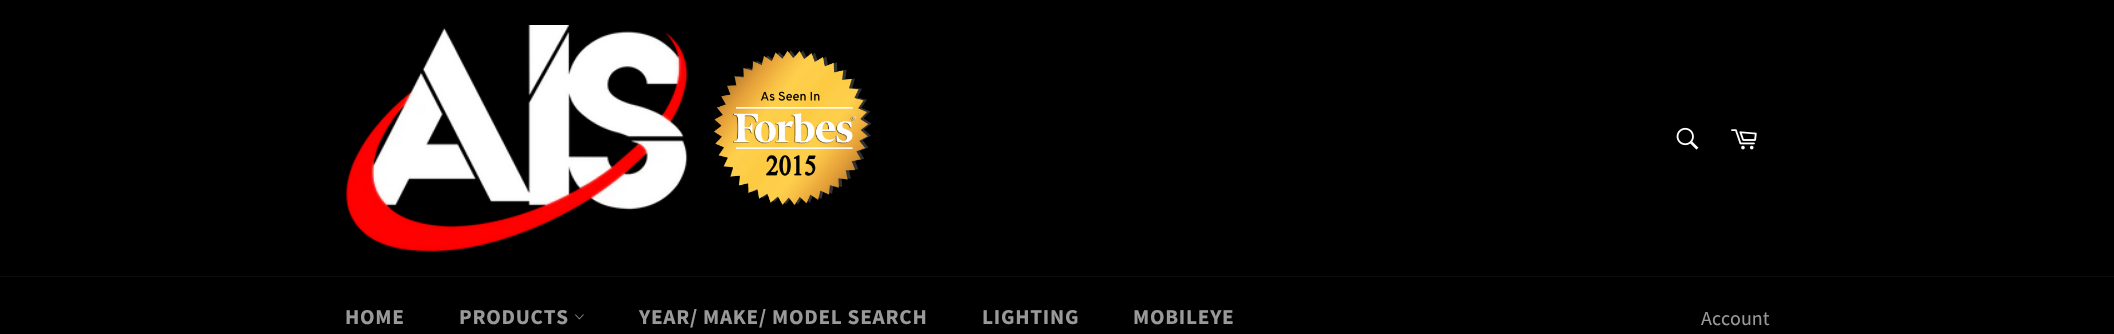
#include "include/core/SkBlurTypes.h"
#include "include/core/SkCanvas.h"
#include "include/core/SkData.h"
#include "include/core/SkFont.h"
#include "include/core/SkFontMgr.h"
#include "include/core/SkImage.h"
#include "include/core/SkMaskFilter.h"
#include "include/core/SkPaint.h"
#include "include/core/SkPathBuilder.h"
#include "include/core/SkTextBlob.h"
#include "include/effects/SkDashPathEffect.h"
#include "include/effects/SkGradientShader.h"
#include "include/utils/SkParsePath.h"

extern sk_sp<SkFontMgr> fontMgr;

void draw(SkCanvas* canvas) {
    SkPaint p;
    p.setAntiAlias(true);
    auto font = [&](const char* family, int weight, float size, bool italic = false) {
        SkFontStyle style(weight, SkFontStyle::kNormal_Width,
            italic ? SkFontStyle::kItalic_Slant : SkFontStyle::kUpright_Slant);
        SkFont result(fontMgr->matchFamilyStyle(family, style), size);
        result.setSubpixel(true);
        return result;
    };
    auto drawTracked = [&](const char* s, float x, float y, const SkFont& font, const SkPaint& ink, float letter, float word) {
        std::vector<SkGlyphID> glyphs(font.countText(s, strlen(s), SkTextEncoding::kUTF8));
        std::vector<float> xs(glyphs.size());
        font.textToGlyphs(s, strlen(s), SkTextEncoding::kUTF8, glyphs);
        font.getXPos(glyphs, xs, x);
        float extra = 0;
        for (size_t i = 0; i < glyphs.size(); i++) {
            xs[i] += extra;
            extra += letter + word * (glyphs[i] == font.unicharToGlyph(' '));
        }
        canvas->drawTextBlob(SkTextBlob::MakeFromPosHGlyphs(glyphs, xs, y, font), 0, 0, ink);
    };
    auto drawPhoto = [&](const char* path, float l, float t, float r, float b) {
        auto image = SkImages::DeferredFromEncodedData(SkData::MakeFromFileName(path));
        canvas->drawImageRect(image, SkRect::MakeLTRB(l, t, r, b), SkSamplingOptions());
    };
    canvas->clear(0xFF000000);
    drawPhoto("media/1.png", 346, 25, 688, 252);
    drawPhoto("media/2.png", 713, 50, 872, 206);
    drawPhoto("media/3.png", 1676, 127, 1699, 150);
    drawPhoto("media/4.png", 1731, 129, 1757, 150);
    p.setColor(0xFF0D0D0D);
    canvas->drawRect(SkRect::MakeLTRB(0, 276, 2114, 277), p);
    auto font1 = font("Source Sans Pro", 700, 21.25f);
    p.setColor(0xFF999999);
    drawTracked("HOME", 345, 324, font1, p, 0.75f, 0);
    drawTracked("PRODUCTS", 459, 324, font1, p, 0.75f, 0);
    drawPhoto("media/5.png", 575, 314, 584, 320);
    {
        const struct { const char* s; float x, y; } items[] = {
            {"YEAR/ MAKE/ MODEL SEARCH", 639, 324},
            {"LIGHTING", 982, 324},
            {"MOBILEYE", 1133, 324},
        };
        for (auto [s, x, y] : items) {
            drawTracked(s, x, y, font1, p, 0.75f, 0);
        }
    }
    auto font2 = font("Source Sans Pro", 400, 20);
    canvas->drawString("Account", 1701, 325, font2, p);
}
